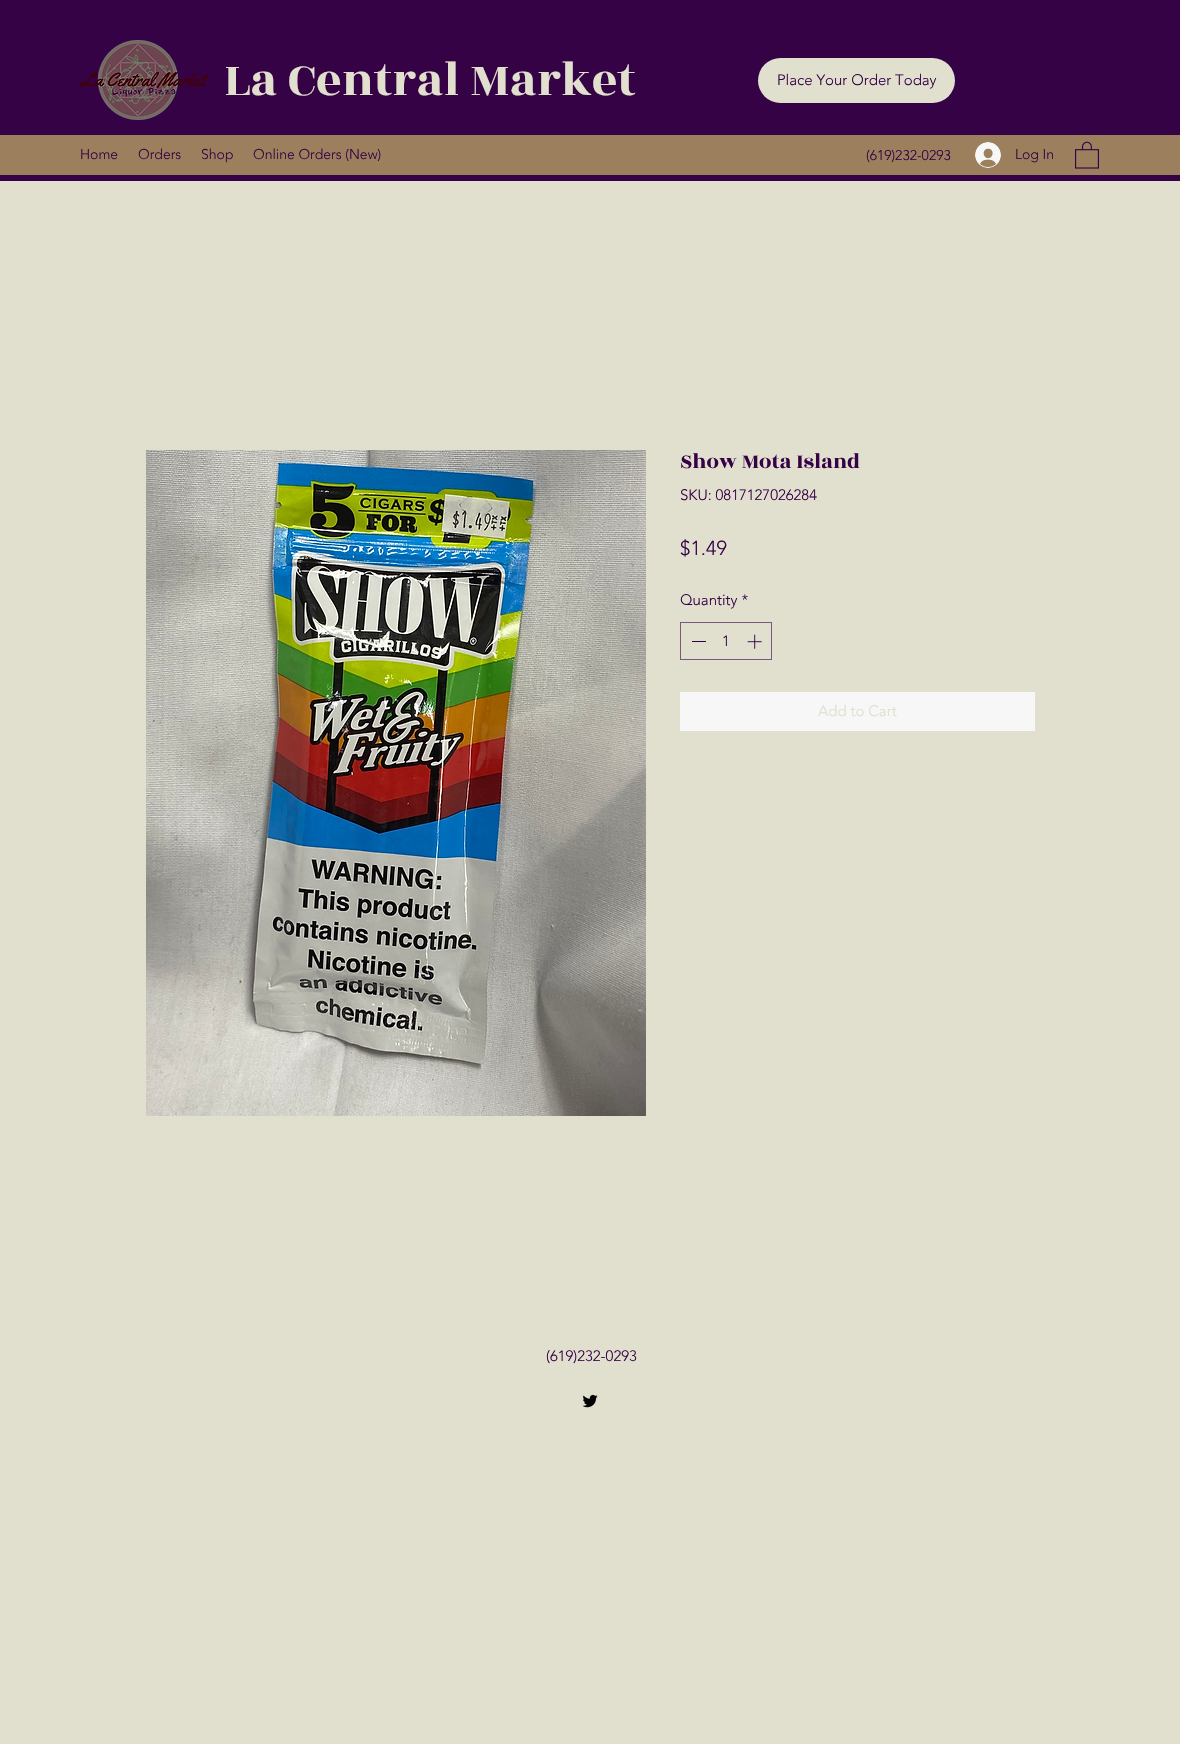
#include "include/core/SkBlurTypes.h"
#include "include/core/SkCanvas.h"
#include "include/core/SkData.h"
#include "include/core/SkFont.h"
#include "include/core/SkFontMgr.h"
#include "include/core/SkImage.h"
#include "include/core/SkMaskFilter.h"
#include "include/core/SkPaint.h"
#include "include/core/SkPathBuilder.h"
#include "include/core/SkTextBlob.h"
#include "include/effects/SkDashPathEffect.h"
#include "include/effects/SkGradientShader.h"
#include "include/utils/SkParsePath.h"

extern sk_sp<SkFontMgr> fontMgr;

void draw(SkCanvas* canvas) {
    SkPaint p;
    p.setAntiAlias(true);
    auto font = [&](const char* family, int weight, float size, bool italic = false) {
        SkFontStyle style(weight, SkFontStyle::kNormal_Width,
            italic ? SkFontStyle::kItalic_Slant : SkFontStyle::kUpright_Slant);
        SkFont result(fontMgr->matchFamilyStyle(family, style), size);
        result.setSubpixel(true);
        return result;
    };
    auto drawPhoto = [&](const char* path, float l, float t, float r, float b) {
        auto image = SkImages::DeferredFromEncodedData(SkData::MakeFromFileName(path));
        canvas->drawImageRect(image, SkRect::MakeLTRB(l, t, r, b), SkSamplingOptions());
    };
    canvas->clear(0xFFE1DFCE);
    p.setColor(0xFF360246);
    canvas->drawRect(SkRect::MakeLTRB(0, 0, 1180, 181), p);
    drawPhoto("media/1.png", 80, 40, 209, 120);
    auto font1 = font("Rozha One", 400, 50);
    p.setColor(0xFFE1DFCE);
    canvas->drawString("La Central Market", 224, 95, font1, p);
    canvas->drawRoundRect(SkRect::MakeLTRB(758, 58, 955, 103), 22.5f, 22.5f, p);
    auto font2 = font("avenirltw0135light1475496", 300, 15);
    p.setColor(0xFF360246);
    canvas->drawString("Place Your Order Today", 777, 85, font2, p);
    p.setColor(0xFF9C7F5C);
    canvas->drawRect(SkRect::MakeLTRB(0, 135, 1180, 175), p);
    auto font3 = font("avenirltw0135light1475496", 300, 14);
    p.setColor(0xFF360246);
    {
        const struct { const char* s; float x, y; } items[] = {
            {"Home", 80, 159},
            {"Orders", 138, 159},
            {"Shop", 201, 159},
            {"Online Orders (New)", 253, 159},
            {"(619)232-0293", 866, 160},
        };
        for (auto [s, x, y] : items) {
            canvas->drawString(s, x, y, font3, p);
        }
    }
    drawPhoto("media/2.png", 975, 142, 1001, 168);
    canvas->drawString("Log In", 1015, 159, font3, p);
    drawPhoto("media/3.png", 1075, 141, 1099, 169);
    drawPhoto("media/4.png", 146, 450, 646, 1116);
    auto font4 = font("Rozha One", 400, 22);
    canvas->drawString("Show Mota Island", 680, 468, font4, p);
    canvas->drawString("SKU: 0817127026284", 680, 500, font2, p);
    auto font5 = font("avenirltw0135light1475496", 300, 20);
    canvas->drawString("$1.49", 680, 555, font5, p);
    canvas->drawString("Quantity *", 680, 605, font2, p);
    p.setStyle(SkPaint::kStroke_Style);
    p.setStrokeWidth(1);
    p.setColor(0xFF7A5A7C);
    canvas->drawRect(SkRect::MakeLTRB(680.5f, 622.5f, 771.5f, 659.5f), p);
    p.setStyle(SkPaint::kFill_Style);
    p.setColor(0xFF360246);
    canvas->drawRect(SkRect::MakeLTRB(692, 641, 706, 642), p);
    canvas->drawString("1", 722, 646, font2, p);
    drawPhoto("media/5.png", 747, 634, 762, 649);
    p.setColor(0xFFF7F7F7);
    canvas->drawRect(SkRect::MakeLTRB(680, 692, 1035, 731), p);
    p.setColor(0xFFE1DFCE);
    canvas->drawString("Add to Cart", 818, 716, font2, p);
    p.setColor(0xFF360246);
    canvas->drawString("(619)232-0293", 546, 1361, font2, p);
    drawPhoto("media/6.png", 582, 1394, 598, 1408);
}
